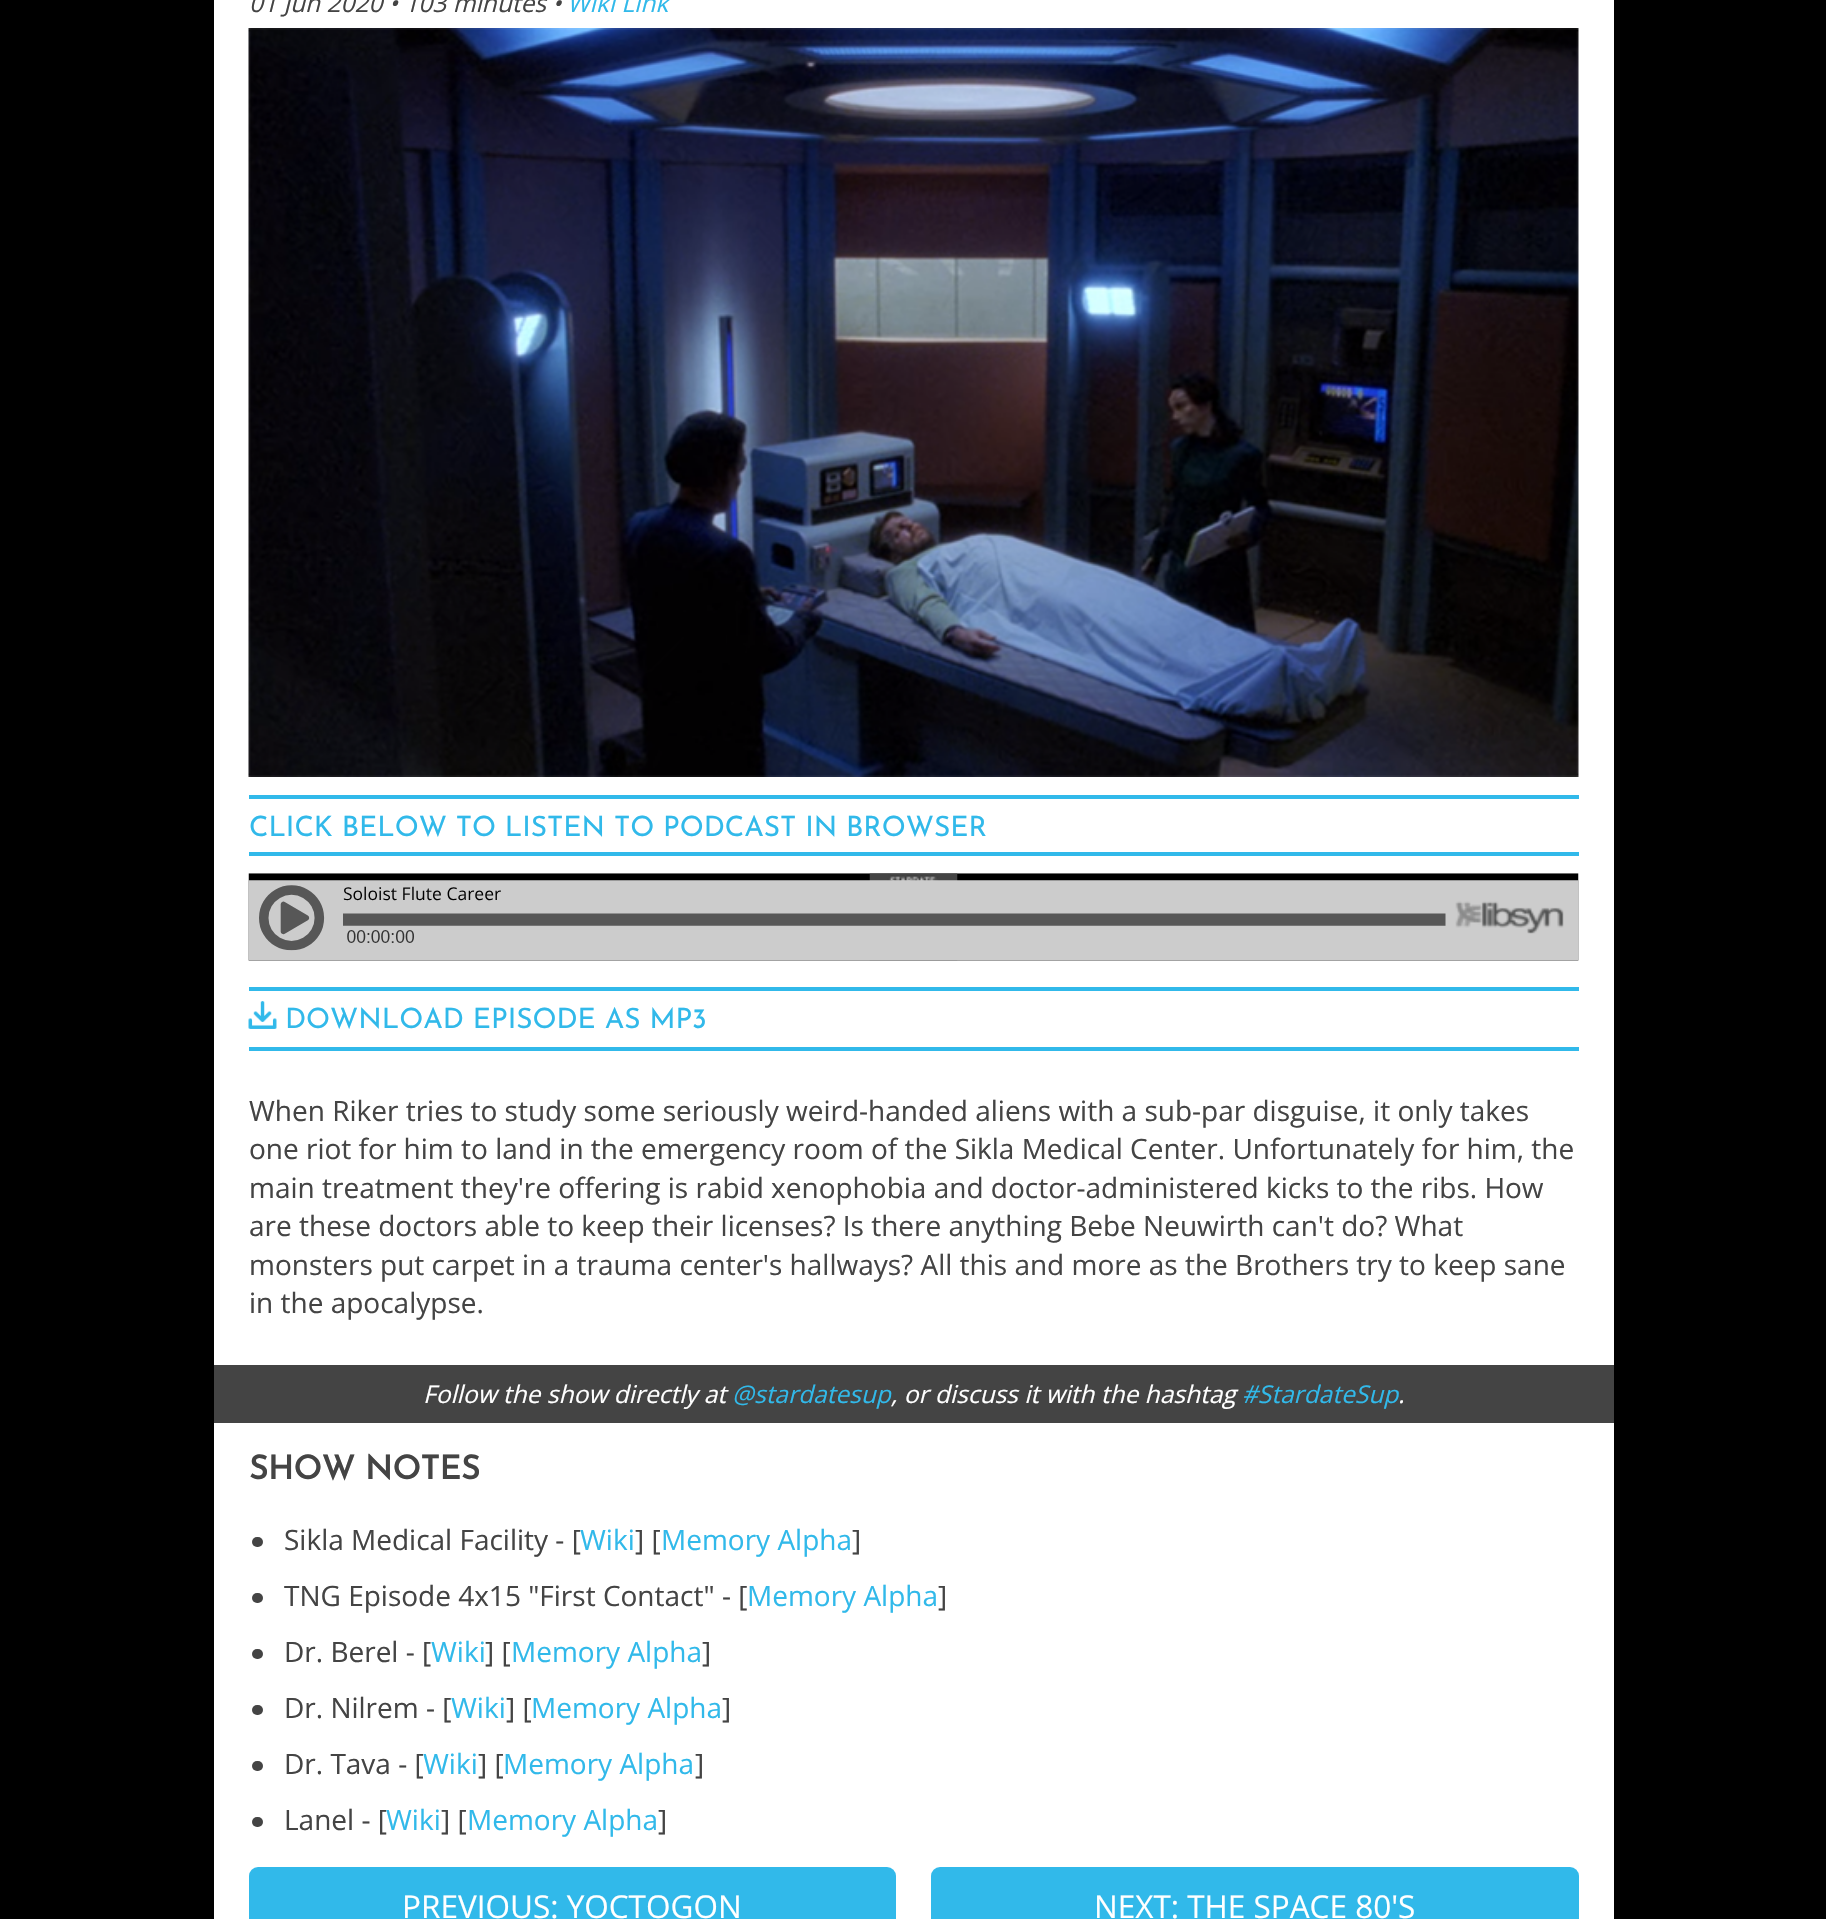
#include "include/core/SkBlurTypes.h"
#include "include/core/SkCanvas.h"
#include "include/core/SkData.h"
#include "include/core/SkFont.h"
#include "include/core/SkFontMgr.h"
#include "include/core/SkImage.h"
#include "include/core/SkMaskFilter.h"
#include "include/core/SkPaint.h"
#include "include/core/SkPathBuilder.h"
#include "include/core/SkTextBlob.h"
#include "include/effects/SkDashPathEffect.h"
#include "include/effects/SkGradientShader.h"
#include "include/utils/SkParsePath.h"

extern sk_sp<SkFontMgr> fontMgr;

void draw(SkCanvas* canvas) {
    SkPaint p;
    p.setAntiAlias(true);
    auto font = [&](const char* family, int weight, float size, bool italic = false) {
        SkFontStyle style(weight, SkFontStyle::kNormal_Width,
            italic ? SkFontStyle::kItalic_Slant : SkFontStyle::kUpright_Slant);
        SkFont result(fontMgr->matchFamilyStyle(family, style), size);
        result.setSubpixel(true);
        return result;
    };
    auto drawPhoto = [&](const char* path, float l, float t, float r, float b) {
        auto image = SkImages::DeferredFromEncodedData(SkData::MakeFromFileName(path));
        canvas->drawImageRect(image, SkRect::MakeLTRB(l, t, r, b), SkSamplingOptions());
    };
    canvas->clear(0xFF000000);
    p.setColor(0xFFFFFFFF);
    canvas->drawRect(SkRect::MakeLTRB(214, 0, 1614, 1919), p);
    auto font1 = font("Open Sans", 400, 24.5f, true);
    p.setColor(0xFF444444);
    canvas->drawString("01 Jun 2020 • 103 minutes •", 249, 12, font1, p);
    p.setColor(0xFF31B9EA);
    canvas->drawString("Wiki Link", 567, 12, font1, p);
    drawPhoto("media/1.png", 248, 28, 1579, 777);
    canvas->drawRect(SkRect::MakeLTRB(249, 795, 1579, 799), p);
    canvas->drawRect(SkRect::MakeLTRB(249, 852, 1579, 856), p);
    auto font2 = font("Josefin Sans", 100, 28);
    canvas->drawString("CLICK BELOW TO LISTEN TO PODCAST IN BROWSER", 249, 836, font2, p);
    drawPhoto("media/2.png", 248, 873, 1579, 961);
    canvas->drawRect(SkRect::MakeLTRB(249, 987, 1579, 991), p);
    canvas->drawRect(SkRect::MakeLTRB(249, 1047, 1579, 1051), p);
    drawPhoto("media/3.png", 248, 1001, 277, 1029);
    canvas->drawString("DOWNLOAD EPISODE AS MP3", 285, 1028, font2, p);
    auto font3 = font("Open Sans", 400, 28);
    p.setColor(0xFF444444);
    {
        const struct { const char* s; float x, y; } items[] = {
            {"When Riker tries to study some seriously weird-handed aliens with a sub-par disguise, it only takes", 249, 1121},
            {"one riot for him to land in the emergency room of the Sikla Medical Center. Unfortunately for him, the", 249, 1159},
            {"main treatment they're offering is rabid xenophobia and doctor-administered kicks to the ribs. How", 249, 1198},
            {"are these doctors able to keep their licenses? Is there anything Bebe Neuwirth can't do? What", 249, 1236},
            {"monsters put carpet in a trauma center's hallways? All this and more as the Brothers try to keep sane", 249, 1275},
            {"in the apocalypse.", 249, 1313},
        };
        for (auto [s, x, y] : items) {
            canvas->drawString(s, x, y, font3, p);
        }
    }
    canvas->drawRect(SkRect::MakeLTRB(214, 1365, 1614, 1423), p);
    p.setColor(0xFFFFFFFF);
    canvas->drawString("Follow the show directly at", 423, 1403, font1, p);
    p.setColor(0xFF31B9EA);
    canvas->drawString("@stardatesup", 732, 1403, font1, p);
    p.setColor(0xFFFFFFFF);
    canvas->drawString(", or discuss it with the hashtag", 891, 1403, font1, p);
    p.setColor(0xFF31B9EA);
    canvas->drawString("#StardateSup", 1242, 1403, font1, p);
    p.setColor(0xFFFFFFFF);
    canvas->drawString(".", 1398, 1403, font1, p);
    auto font4 = font("Josefin Sans", 700, 32.75f);
    p.setColor(0xFF444444);
    canvas->drawString("SHOW NOTES", 249, 1479, font4, p);
    canvas->drawRoundRect(SkRect::MakeLTRB(252, 1537, 263, 1547), 5, 5, p);
    canvas->drawString("Sikla Medical Facility - [", 284, 1550, font3, p);
    p.setColor(0xFF31B9EA);
    canvas->drawString("Wiki", 580, 1550, font3, p);
    p.setColor(0xFF444444);
    canvas->drawString("] [", 635, 1550, font3, p);
    p.setColor(0xFF31B9EA);
    canvas->drawString("Memory Alpha", 661, 1550, font3, p);
    p.setColor(0xFF444444);
    canvas->drawString("]", 852, 1550, font3, p);
    canvas->drawRoundRect(SkRect::MakeLTRB(252, 1593, 263, 1603), 5, 5, p);
    canvas->drawString("TNG Episode 4x15 \"First Contact\" - [", 284, 1606, font3, p);
    p.setColor(0xFF31B9EA);
    canvas->drawString("Memory Alpha", 747, 1606, font3, p);
    p.setColor(0xFF444444);
    canvas->drawString("]", 938, 1606, font3, p);
    canvas->drawRoundRect(SkRect::MakeLTRB(252, 1649, 263, 1659), 5, 5, p);
    canvas->drawString("Dr. Berel - [", 284, 1662, font3, p);
    p.setColor(0xFF31B9EA);
    canvas->drawString("Wiki", 431, 1662, font3, p);
    p.setColor(0xFF444444);
    canvas->drawString("] [", 485, 1662, font3, p);
    p.setColor(0xFF31B9EA);
    canvas->drawString("Memory Alpha", 511, 1662, font3, p);
    p.setColor(0xFF444444);
    canvas->drawString("]", 702, 1662, font3, p);
    canvas->drawRoundRect(SkRect::MakeLTRB(252, 1705, 263, 1715), 5, 5, p);
    canvas->drawString("Dr. Nilrem - [", 284, 1718, font3, p);
    p.setColor(0xFF31B9EA);
    canvas->drawString("Wiki", 451, 1718, font3, p);
    p.setColor(0xFF444444);
    canvas->drawString("] [", 506, 1718, font3, p);
    p.setColor(0xFF31B9EA);
    canvas->drawString("Memory Alpha", 531, 1718, font3, p);
    p.setColor(0xFF444444);
    canvas->drawString("]", 722, 1718, font3, p);
    canvas->drawRoundRect(SkRect::MakeLTRB(252, 1761, 263, 1771), 5, 5, p);
    canvas->drawString("Dr. Tava - [", 284, 1774, font3, p);
    p.setColor(0xFF31B9EA);
    canvas->drawString("Wiki", 423, 1774, font3, p);
    p.setColor(0xFF444444);
    canvas->drawString("] [", 478, 1774, font3, p);
    p.setColor(0xFF31B9EA);
    canvas->drawString("Memory Alpha", 503, 1774, font3, p);
    p.setColor(0xFF444444);
    canvas->drawString("]", 695, 1774, font3, p);
    canvas->drawRoundRect(SkRect::MakeLTRB(252, 1817, 263, 1827), 5, 5, p);
    canvas->drawString("Lanel - [", 284, 1830, font3, p);
    p.setColor(0xFF31B9EA);
    canvas->drawString("Wiki", 386, 1830, font3, p);
    p.setColor(0xFF444444);
    canvas->drawString("] [", 441, 1830, font3, p);
    p.setColor(0xFF31B9EA);
    canvas->drawString("Memory Alpha", 467, 1830, font3, p);
    p.setColor(0xFF444444);
    canvas->drawString("]", 658, 1830, font3, p);
    p.setColor(0xFF31B9EA);
    canvas->drawRoundRect(SkRect::MakeLTRB(249, 1867, 896, 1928), 9, 9, p);
    auto font5 = font("Open Sans", 400, 31.5f);
    p.setColor(0xFFFFFFFF);
    canvas->drawString("PREVIOUS: YOCTOGON", 402, 1918, font5, p);
    p.setColor(0xFF31B9EA);
    canvas->drawRoundRect(SkRect::MakeLTRB(931, 1867, 1579, 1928), 9, 9, p);
    p.setColor(0xFFFFFFFF);
    canvas->drawString("NEXT: THE SPACE 80'S", 1094, 1918, font5, p);
}
